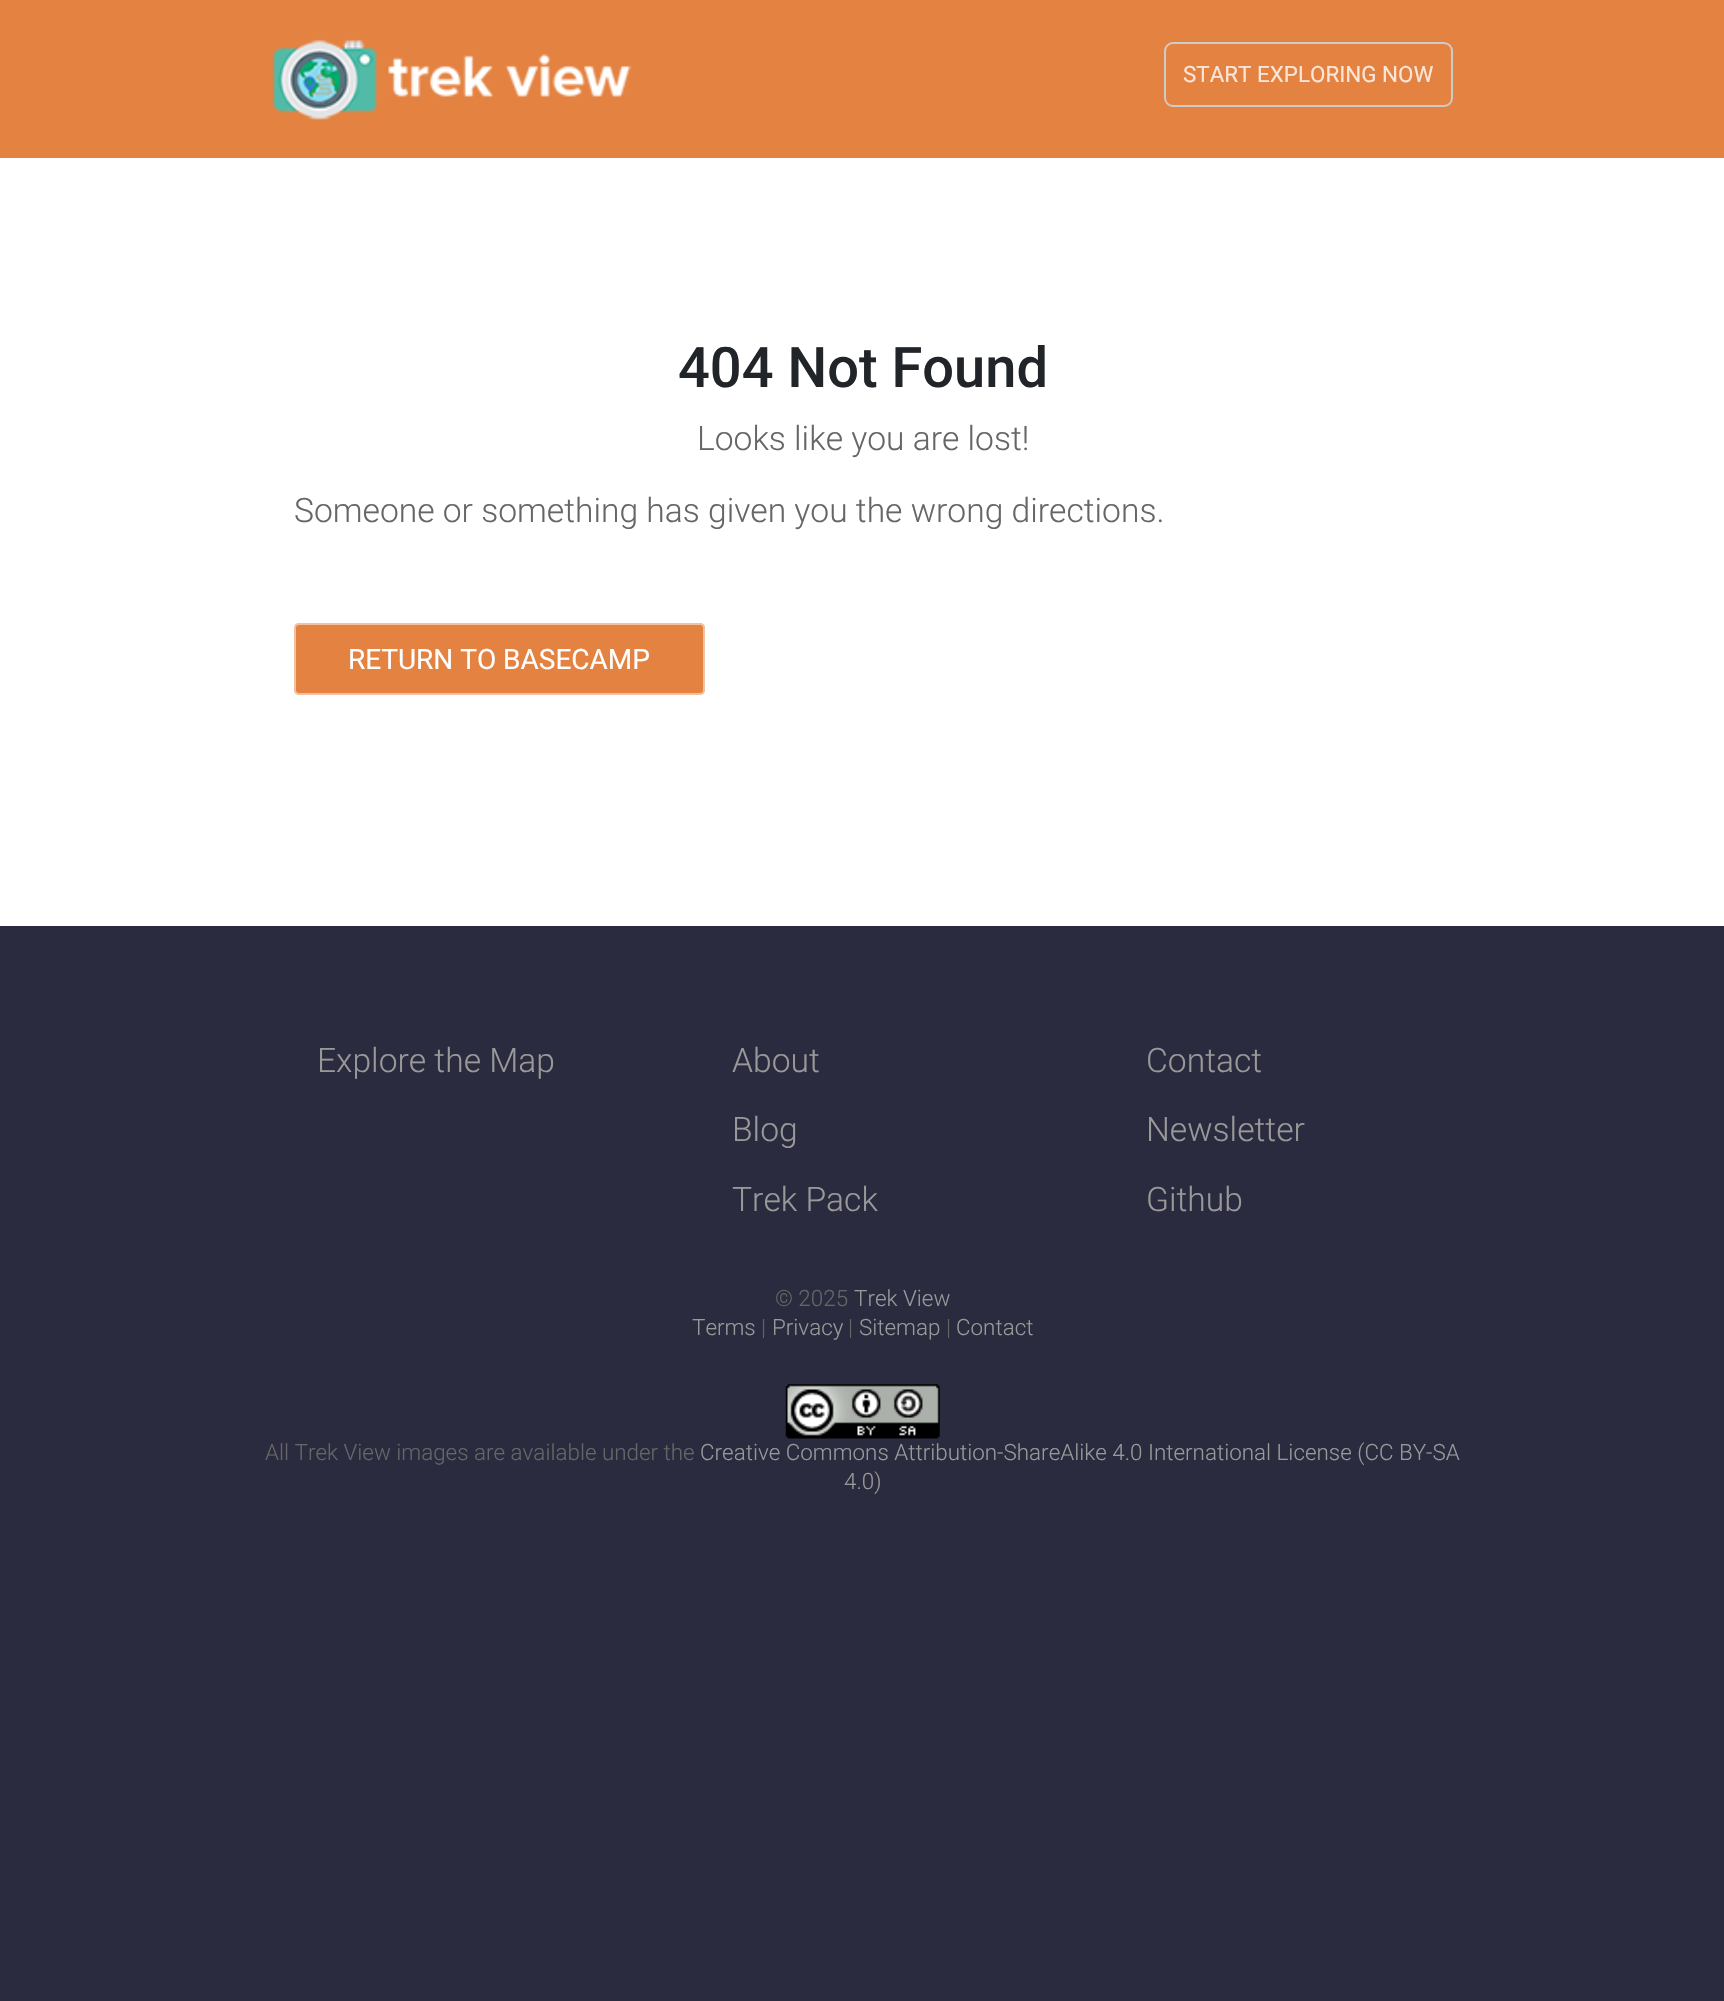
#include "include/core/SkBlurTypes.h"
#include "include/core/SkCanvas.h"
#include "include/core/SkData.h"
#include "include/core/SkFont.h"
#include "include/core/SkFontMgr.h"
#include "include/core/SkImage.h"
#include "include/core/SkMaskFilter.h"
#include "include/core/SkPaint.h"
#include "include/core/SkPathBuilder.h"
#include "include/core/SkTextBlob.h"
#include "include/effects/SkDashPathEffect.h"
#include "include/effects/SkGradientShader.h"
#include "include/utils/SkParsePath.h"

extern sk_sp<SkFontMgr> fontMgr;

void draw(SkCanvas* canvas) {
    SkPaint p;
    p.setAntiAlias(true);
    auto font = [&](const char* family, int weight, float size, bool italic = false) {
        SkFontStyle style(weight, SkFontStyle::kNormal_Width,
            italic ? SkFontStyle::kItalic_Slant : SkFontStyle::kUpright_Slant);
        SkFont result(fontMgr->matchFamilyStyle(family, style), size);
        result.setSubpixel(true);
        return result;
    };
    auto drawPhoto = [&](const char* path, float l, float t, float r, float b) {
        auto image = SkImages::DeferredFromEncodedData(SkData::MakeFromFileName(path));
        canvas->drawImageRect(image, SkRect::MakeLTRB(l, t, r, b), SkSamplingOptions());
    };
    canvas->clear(0xFF2B2B40);
    p.setColor(0xFFFFFFFF);
    canvas->drawRect(SkRect::MakeLTRB(0, 158, 1724, 926), p);
    p.setColor(0xFFE48241);
    canvas->drawRect(SkRect::MakeLTRB(0, 0, 1724, 158), p);
    drawPhoto("media/1.png", 272, 39, 632, 120);
    p.setStyle(SkPaint::kStroke_Style);
    p.setStrokeWidth(2);
    p.setColor(0xFFCCCCCC);
    canvas->drawRoundRect(SkRect::MakeLTRB(1165, 43, 1452, 106), 8, 8, p);
    auto font1 = font("Roboto", 400, 22.4f);
    p.setStyle(SkPaint::kFill_Style);
    p.setColor(0xFFFAE6D9);
    canvas->drawString("START EXPLORING NOW", 1183, 82, font1, p);
    auto font2 = font("Roboto", 500, 56);
    p.setColor(0xFF212529);
    canvas->drawString("404 Not Found", 678, 387, font2, p);
    auto font3 = font("Roboto", 300, 33.6f);
    p.setColor(0xFF666666);
    canvas->drawString("Looks like you are lost!", 697, 450, font3, p);
    canvas->drawString("Someone or something has given you the wrong directions.", 294, 522, font3, p);
    p.setColor(0xFFE48241);
    canvas->drawRoundRect(SkRect::MakeLTRB(294, 623, 705, 695), 5, 5, p);
    p.setStyle(SkPaint::kStroke_Style);
    p.setColor(0x80FFFFFF);
    canvas->drawRoundRect(SkRect::MakeLTRB(295, 624, 704, 694), 4, 4, p);
    auto font4 = font("Roboto", 400, 28);
    p.setStyle(SkPaint::kFill_Style);
    p.setColor(0xFFFFFFFF);
    canvas->drawString("RETURN TO BASECAMP", 348, 669, font4, p);
    p.setColor(0xFF999999);
    {
        const struct { const char* s; float x, y; } items[] = {
            {"Explore the Map", 317, 1072},
            {"About", 732, 1072},
            {"Blog", 732, 1141},
            {"Trek Pack", 732, 1211},
            {"Contact", 1146, 1072},
            {"Newsletter", 1146, 1141},
            {"Github", 1146, 1211},
        };
        for (auto [s, x, y] : items) {
            canvas->drawString(s, x, y, font3, p);
        }
    }
    auto font5 = font("Roboto", 300, 22.4f);
    p.setColor(0xFF666666);
    canvas->drawString("© 2025", 775, 1306, font5, p);
    p.setColor(0xFF999999);
    canvas->drawString("Trek View", 854, 1306, font5, p);
    canvas->drawString("Terms", 692, 1335, font5, p);
    p.setColor(0xFF666666);
    canvas->drawString("|", 761, 1335, font5, p);
    p.setColor(0xFF999999);
    canvas->drawString("Privacy", 772, 1335, font5, p);
    p.setColor(0xFF666666);
    canvas->drawString("|", 848, 1335, font5, p);
    p.setColor(0xFF999999);
    canvas->drawString("Sitemap", 859, 1335, font5, p);
    p.setColor(0xFF666666);
    canvas->drawString("|", 946, 1335, font5, p);
    p.setColor(0xFF999999);
    canvas->drawString("Contact", 956, 1335, font5, p);
    drawPhoto("media/2.png", 785, 1384, 940, 1439);
    p.setColor(0xFF666666);
    canvas->drawString("All Trek View images are available under the", 265, 1460, font5, p);
    p.setColor(0xFF999999);
    canvas->drawString("Creative Commons Attribution-ShareAlike 4.0 International License (CC BY-SA", 700, 1460, font5, p);
    canvas->drawString("4.0)", 844, 1489, font5, p);
}
